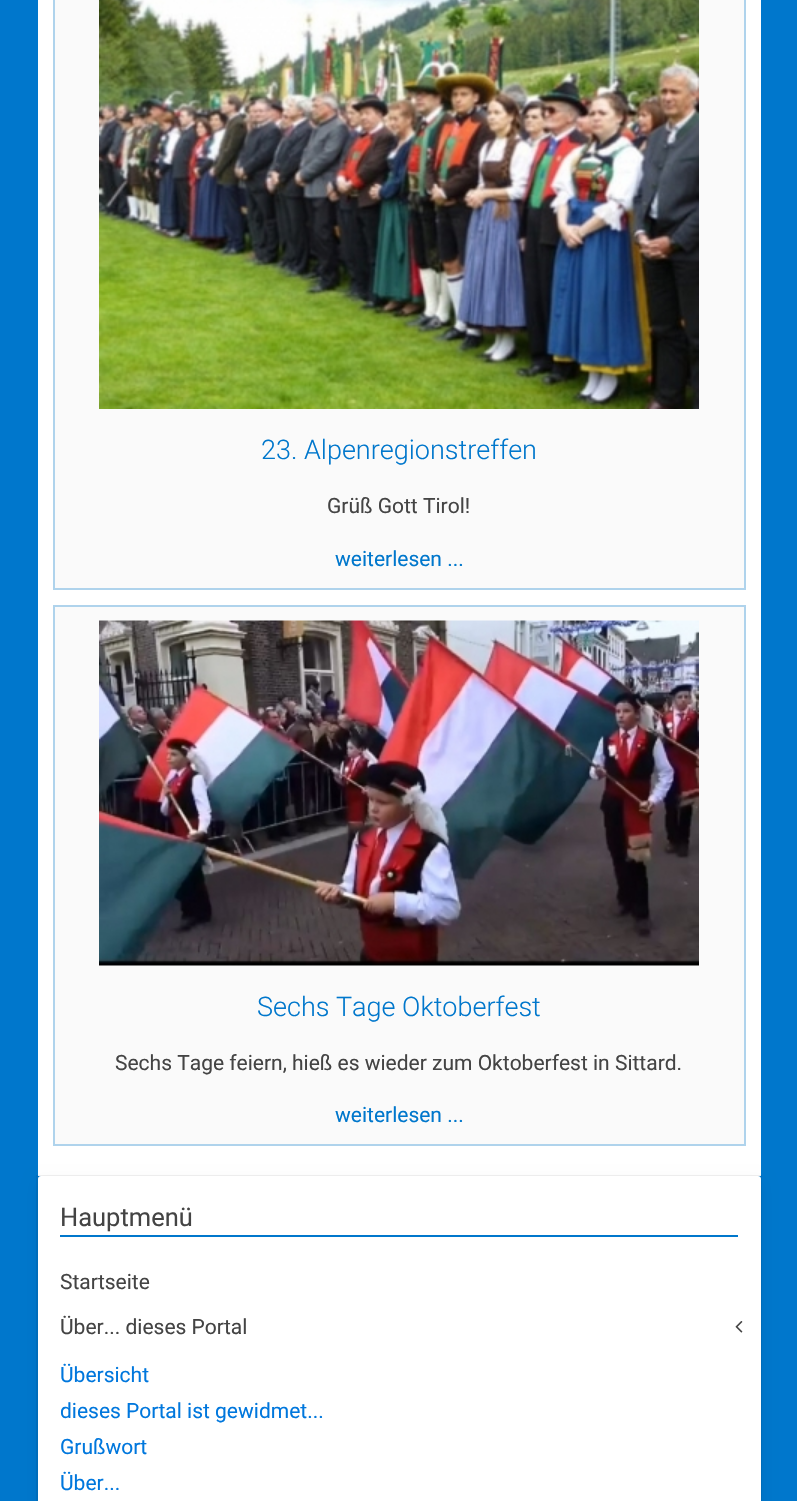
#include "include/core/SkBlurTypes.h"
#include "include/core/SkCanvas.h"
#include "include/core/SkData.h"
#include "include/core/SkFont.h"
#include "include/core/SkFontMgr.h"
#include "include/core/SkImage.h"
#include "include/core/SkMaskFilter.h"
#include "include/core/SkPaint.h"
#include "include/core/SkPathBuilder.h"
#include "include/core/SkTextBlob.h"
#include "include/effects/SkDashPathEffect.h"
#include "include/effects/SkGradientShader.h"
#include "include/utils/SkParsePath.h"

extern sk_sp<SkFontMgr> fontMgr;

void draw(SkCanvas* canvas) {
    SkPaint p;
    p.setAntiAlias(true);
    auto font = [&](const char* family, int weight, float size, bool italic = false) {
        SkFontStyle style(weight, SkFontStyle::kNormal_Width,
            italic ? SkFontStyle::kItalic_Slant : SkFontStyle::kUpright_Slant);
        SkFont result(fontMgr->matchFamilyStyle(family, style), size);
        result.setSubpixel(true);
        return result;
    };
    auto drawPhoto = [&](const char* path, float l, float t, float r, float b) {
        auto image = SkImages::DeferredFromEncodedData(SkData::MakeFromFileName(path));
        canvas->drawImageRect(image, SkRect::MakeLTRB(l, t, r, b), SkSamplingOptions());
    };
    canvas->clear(0xFF0077CC);
    p.setColor(0xFFFFFFFF);
    canvas->drawRect(SkRect::MakeLTRB(38, 0, 761, 1176), p);
    p.setColor(0xFFFAFAFA);
    canvas->drawRect(SkRect::MakeLTRB(54, -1, 745, 589), p);
    p.setStyle(SkPaint::kStroke_Style);
    p.setStrokeWidth(2);
    p.setColor(0xFFAFD3EC);
    canvas->drawRect(SkRect::MakeLTRB(54, -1, 745, 589), p);
    drawPhoto("media/1.png", 99, 0, 699, 409);
    auto font1 = font("Roboto", 300, 27);
    p.setStyle(SkPaint::kFill_Style);
    p.setColor(0xFF0077CC);
    canvas->drawString("23. Alpenregionstreffen", 261, 459, font1, p);
    auto font2 = font("Roboto", 400, 21);
    p.setColor(0xFF444444);
    canvas->drawString("Grüß Gott Tirol!", 327, 513, font2, p);
    p.setColor(0xFF0077CC);
    canvas->drawString("weiterlesen ...", 335, 566, font2, p);
    p.setColor(0xFFFAFAFA);
    canvas->drawRect(SkRect::MakeLTRB(54, 606, 745, 1145), p);
    p.setStyle(SkPaint::kStroke_Style);
    p.setColor(0xFFAFD3EC);
    canvas->drawRect(SkRect::MakeLTRB(54, 606, 745, 1145), p);
    drawPhoto("media/2.png", 99, 620, 699, 966);
    p.setStyle(SkPaint::kFill_Style);
    p.setColor(0xFF0077CC);
    canvas->drawString("Sechs Tage Oktoberfest", 257, 1016, font1, p);
    p.setColor(0xFF444444);
    canvas->drawString("Sechs Tage feiern, hieß es wieder zum Oktoberfest in Sittard.", 115, 1070, font2, p);
    p.setColor(0xFF0077CC);
    canvas->drawString("weiterlesen ...", 335, 1122, font2, p);
    p.setColor(0x0F000000);
    p.setMaskFilter(SkMaskFilter::MakeBlur(kNormal_SkBlurStyle, 7.5f));
    canvas->drawRoundRect(SkRect::MakeLTRB(38, 1182, 761, 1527), 3, 3, p);
    p.setMaskFilter(nullptr);
    p.setStyle(SkPaint::kStroke_Style);
    canvas->drawRect(SkRect::MakeLTRB(37, 1176, 761, 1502), p);
    p.setStyle(SkPaint::kFill_Style);
    p.setColor(0xFFFFFFFF);
    canvas->drawRoundRect(SkRect::MakeLTRB(38, 1176, 761, 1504), 3, 3, p);
    p.setColor(0xFF0077CC);
    canvas->drawRect(SkRect::MakeLTRB(60, 1235, 738, 1237), p);
    auto font3 = font("Roboto", 400, 25.5f);
    p.setColor(0xFF444444);
    canvas->drawString("Hauptmenü", 60, 1226, font3, p);
    canvas->drawString("Startseite", 60, 1289, font2, p);
    canvas->drawString("Über... dieses Portal", 60, 1334, font2, p);
    drawPhoto("media/3.png", 735, 1321, 743, 1333);
    p.setColor(0xFF0077DD);
    {
        const struct { const char* s; float x, y; } items[] = {
            {"Übersicht", 60, 1382},
            {"dieses Portal ist gewidmet...", 60, 1418},
            {"Grußwort", 60, 1454},
            {"Über...", 60, 1490},
        };
        for (auto [s, x, y] : items) {
            canvas->drawString(s, x, y, font2, p);
        }
    }
}
